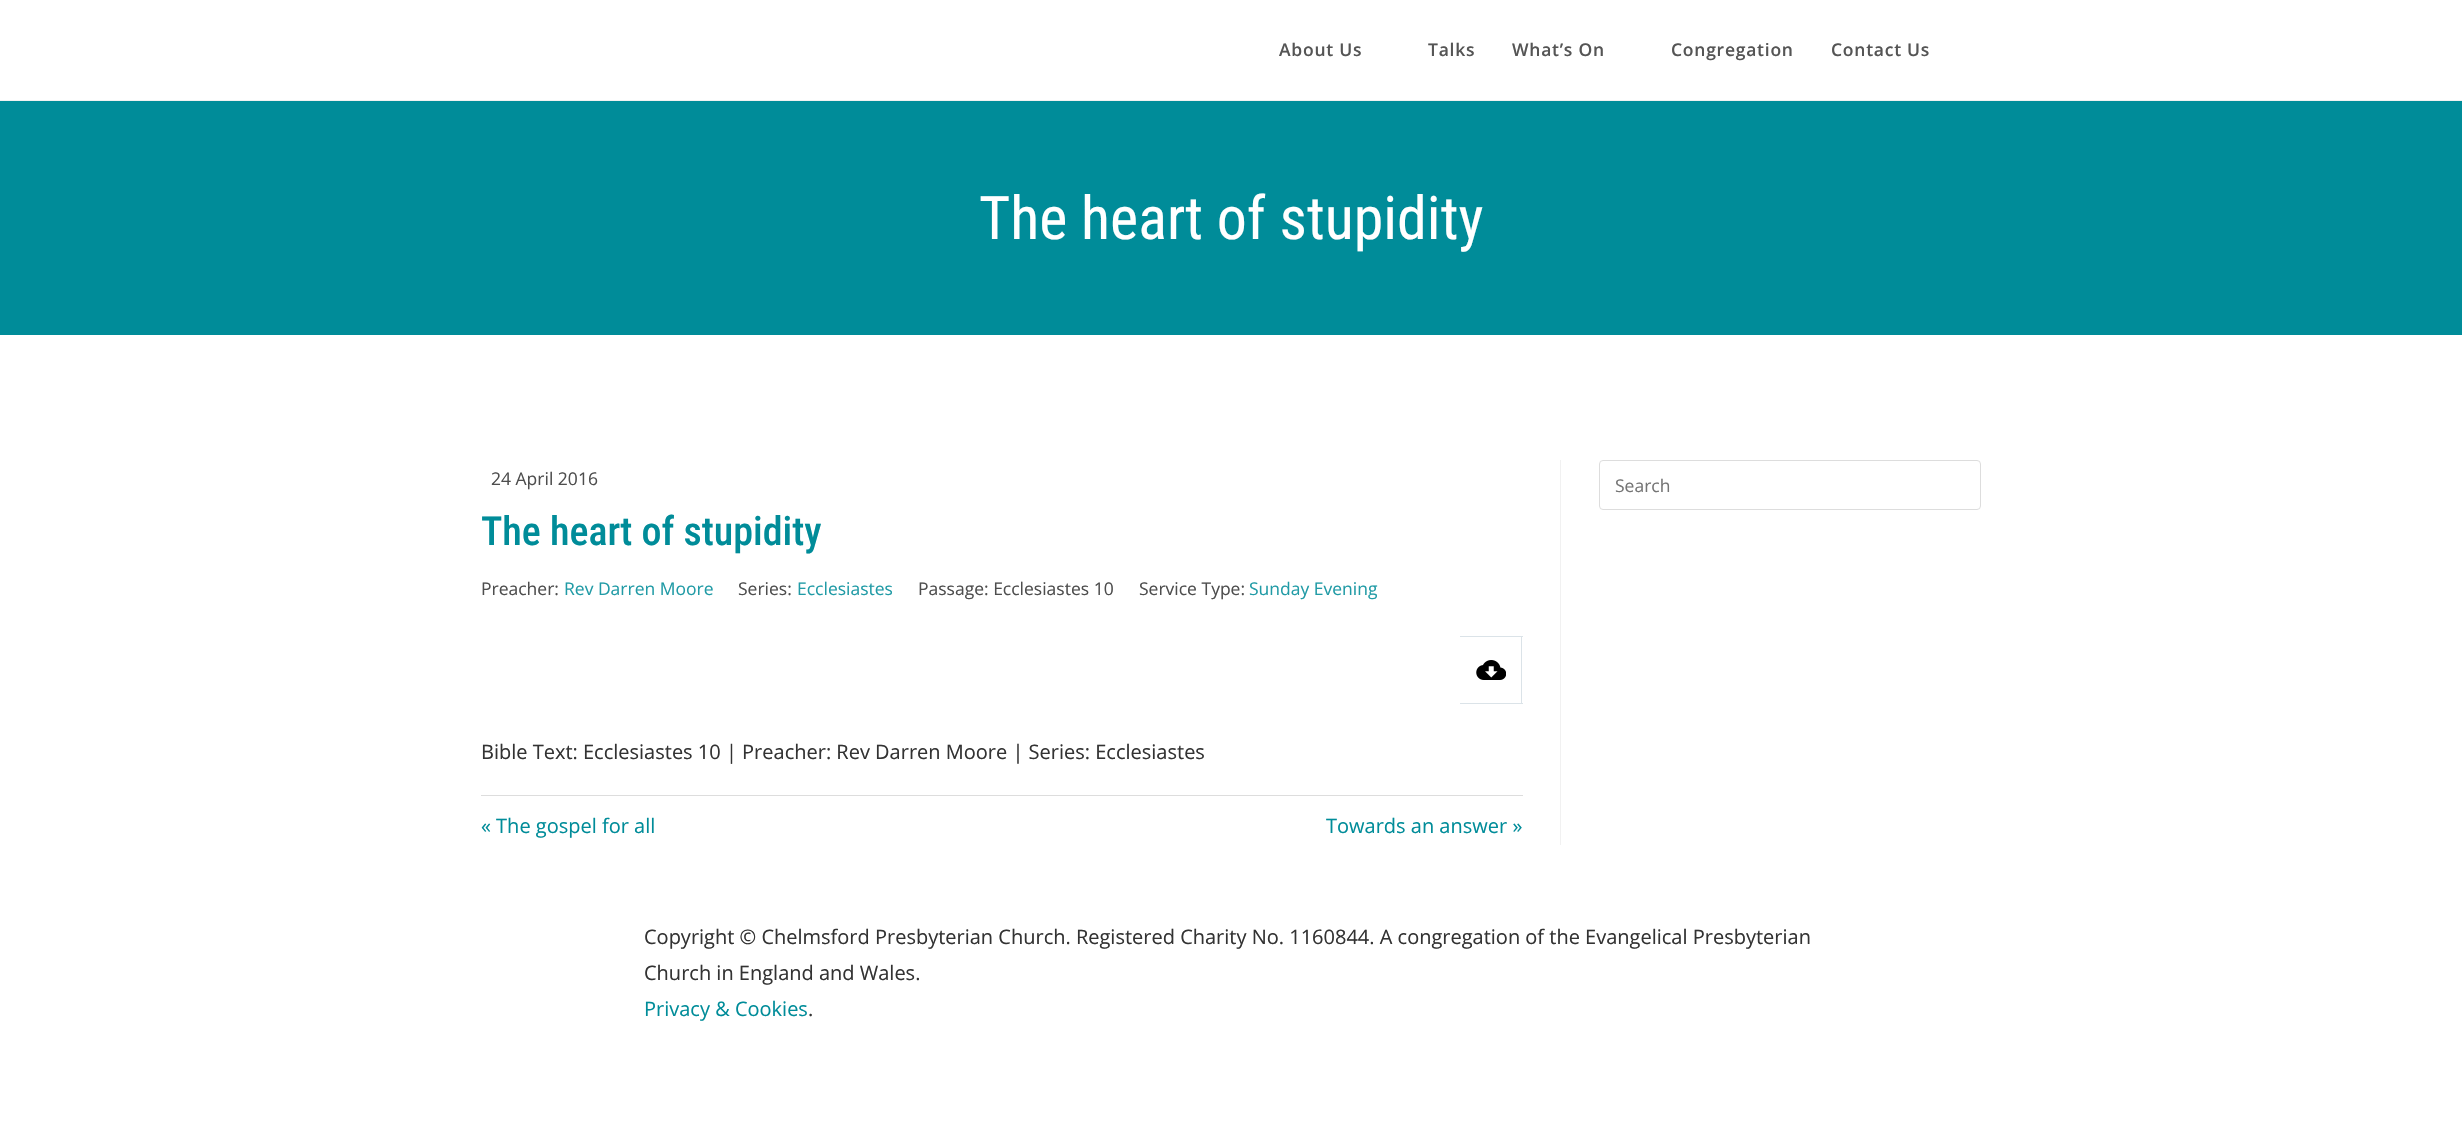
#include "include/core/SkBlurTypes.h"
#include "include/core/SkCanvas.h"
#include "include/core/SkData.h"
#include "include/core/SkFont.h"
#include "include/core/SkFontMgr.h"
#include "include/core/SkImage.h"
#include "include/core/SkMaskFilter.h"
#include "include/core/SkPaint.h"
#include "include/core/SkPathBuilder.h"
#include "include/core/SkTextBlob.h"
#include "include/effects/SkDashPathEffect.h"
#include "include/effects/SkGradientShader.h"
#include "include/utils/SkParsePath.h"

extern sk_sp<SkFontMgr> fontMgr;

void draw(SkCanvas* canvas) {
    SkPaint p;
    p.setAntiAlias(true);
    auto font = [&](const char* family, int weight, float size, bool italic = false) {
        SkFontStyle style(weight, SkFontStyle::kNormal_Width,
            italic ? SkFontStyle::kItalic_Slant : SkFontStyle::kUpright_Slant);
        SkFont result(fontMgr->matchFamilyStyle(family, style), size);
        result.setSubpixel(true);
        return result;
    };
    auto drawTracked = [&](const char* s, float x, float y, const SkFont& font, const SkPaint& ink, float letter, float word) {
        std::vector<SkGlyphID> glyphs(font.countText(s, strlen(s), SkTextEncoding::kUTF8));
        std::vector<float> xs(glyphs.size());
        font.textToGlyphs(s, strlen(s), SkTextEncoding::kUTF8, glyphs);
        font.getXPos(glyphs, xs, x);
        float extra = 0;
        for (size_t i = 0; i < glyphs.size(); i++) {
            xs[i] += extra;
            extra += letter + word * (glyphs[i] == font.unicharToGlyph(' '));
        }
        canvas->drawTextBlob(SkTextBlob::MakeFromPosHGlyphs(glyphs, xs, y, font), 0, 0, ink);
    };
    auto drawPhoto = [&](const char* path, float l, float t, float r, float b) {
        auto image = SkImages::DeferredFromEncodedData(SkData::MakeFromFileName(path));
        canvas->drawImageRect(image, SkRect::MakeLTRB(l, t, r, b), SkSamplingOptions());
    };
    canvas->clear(0xFFFFFFFF);
    p.setColor(0xFFF1F1F1);
    canvas->drawRect(SkRect::MakeLTRB(0, 100, 2462, 101), p);
    auto font1 = font("Open Sans", 600, 17.5f);
    p.setColor(0xFF555555);
    {
        const struct { const char* s; float x, y; } items[] = {
            {"About Us", 1279, 56},
            {"Talks", 1428, 56},
            {"What’s On", 1512, 56},
            {"Congregation", 1671, 56},
            {"Contact Us", 1831, 56},
        };
        for (auto [s, x, y] : items) {
            drawTracked(s, x, y, font1, p, 0.75f, 0);
        }
    }
    p.setColor(0xFF008C99);
    canvas->drawRect(SkRect::MakeLTRB(0, 101, 2462, 335), p);
    auto font2 = font("Roboto Condensed", 400, 60);
    p.setColor(0xFFFFFFFF);
    canvas->drawString("The heart of stupidity", 979, 239, font2, p);
    p.setColor(0xFFF1F1F1);
    canvas->drawRect(SkRect::MakeLTRB(1560, 460, 1561, 845), p);
    auto font3 = font("Open Sans", 400, 17.5f);
    p.setColor(0xFF4E4E4E);
    canvas->drawString("24 April 2016", 491, 485, font3, p);
    auto font4 = font("Roboto Condensed", 500, 40);
    p.setColor(0xFF008C99);
    canvas->drawString("The heart of stupidity", 481, 545, font4, p);
    p.setColor(0xFF4E4E4E);
    canvas->drawString("Preacher:", 481, 595, font3, p);
    p.setColor(0xFF219BA6);
    canvas->drawString("Rev Darren Moore", 564, 595, font3, p);
    p.setColor(0xFF4E4E4E);
    canvas->drawString("Series:", 738, 595, font3, p);
    p.setColor(0xFF219BA6);
    canvas->drawString("Ecclesiastes", 797, 595, font3, p);
    p.setColor(0xFF4E4E4E);
    canvas->drawString("Passage: Ecclesiastes 10", 918, 595, font3, p);
    canvas->drawString("Service Type:", 1139, 595, font3, p);
    p.setColor(0xFF219BA6);
    canvas->drawString("Sunday Evening", 1249, 595, font3, p);
    {
        const struct { float l, t, r, b; SkColor color; } items[] = {
            {1460, 636, 1523, 637, 0xFFDBE3E8},
            {1521, 636, 1522, 704, 0xFFDBE3E8},
            {1460, 703, 1523, 704, 0xFFDBE3E8},
        };
        for (auto [l, t, r, b, color] : items) {
            p.setColor(color);
            canvas->drawRect(SkRect::MakeLTRB(l, t, r, b), p);
        }
    }
    drawPhoto("media/1.png", 1476, 660, 1506, 680);
    auto font5 = font("Open Sans", 400, 20);
    p.setColor(0xFF333333);
    canvas->drawString("Bible Text: Ecclesiastes 10 | Preacher: Rev Darren Moore | Series: Ecclesiastes", 481, 759, font5, p);
    p.setColor(0xFFDDDDDD);
    canvas->drawRect(SkRect::MakeLTRB(481, 795, 1523, 796), p);
    p.setColor(0xFF008C99);
    canvas->drawString("« The gospel for all", 481, 833, font5, p);
    canvas->drawString("Towards an answer »", 1326, 833, font5, p);
    p.setStyle(SkPaint::kStroke_Style);
    p.setStrokeWidth(1);
    p.setColor(0xFFDDDDDD);
    canvas->drawRoundRect(SkRect::MakeLTRB(1599.5f, 460.5f, 1980.5f, 509.5f), 3.5f, 3.5f, p);
    p.setStyle(SkPaint::kFill_Style);
    p.setColor(0xFF757575);
    canvas->drawString("Search", 1615, 492, font3, p);
    p.setColor(0xFF333333);
    canvas->drawString("Copyright © Chelmsford Presbyterian Church. Registered Charity No. 1160844. A congregation of the Evangelical Presbyterian", 644, 944, font5, p);
    canvas->drawString("Church in England and Wales.", 644, 980, font5, p);
    p.setColor(0xFF008C99);
    canvas->drawString("Privacy & Cookies", 644, 1016, font5, p);
    p.setColor(0xFF333333);
    canvas->drawString(".", 808, 1016, font5, p);
}
